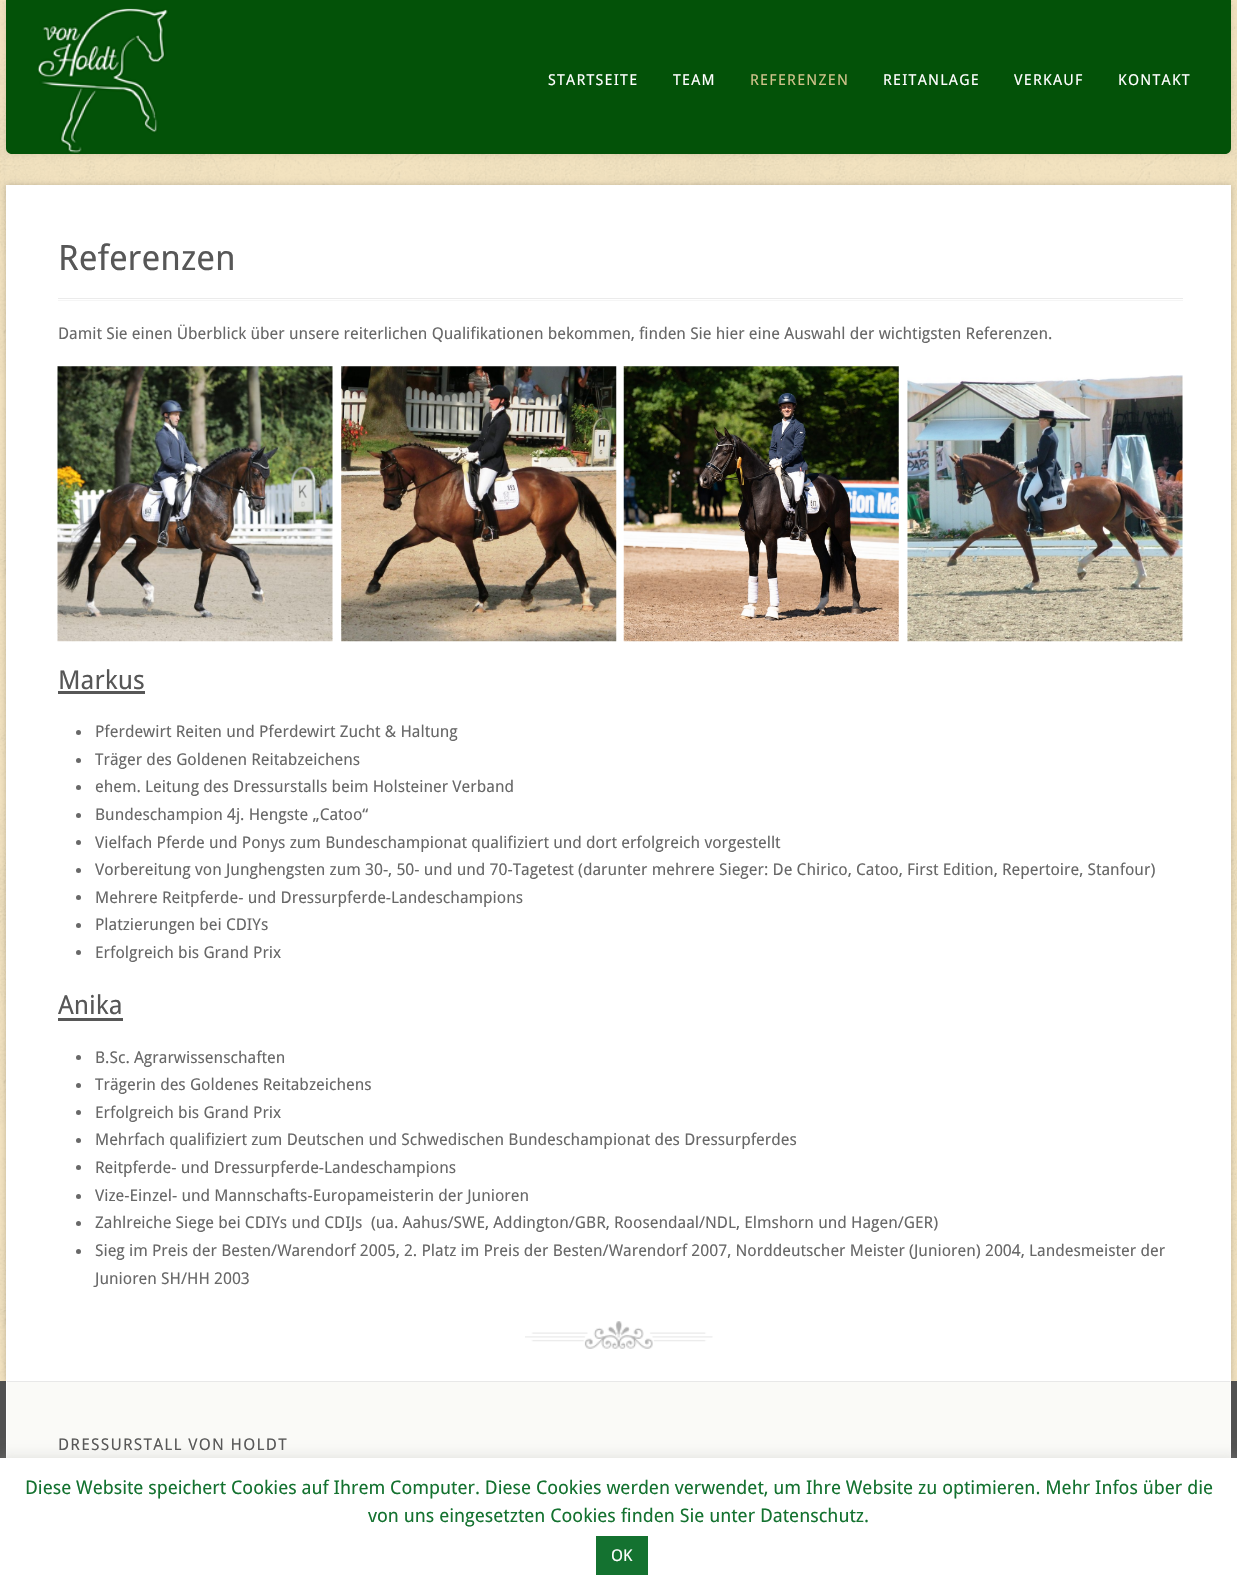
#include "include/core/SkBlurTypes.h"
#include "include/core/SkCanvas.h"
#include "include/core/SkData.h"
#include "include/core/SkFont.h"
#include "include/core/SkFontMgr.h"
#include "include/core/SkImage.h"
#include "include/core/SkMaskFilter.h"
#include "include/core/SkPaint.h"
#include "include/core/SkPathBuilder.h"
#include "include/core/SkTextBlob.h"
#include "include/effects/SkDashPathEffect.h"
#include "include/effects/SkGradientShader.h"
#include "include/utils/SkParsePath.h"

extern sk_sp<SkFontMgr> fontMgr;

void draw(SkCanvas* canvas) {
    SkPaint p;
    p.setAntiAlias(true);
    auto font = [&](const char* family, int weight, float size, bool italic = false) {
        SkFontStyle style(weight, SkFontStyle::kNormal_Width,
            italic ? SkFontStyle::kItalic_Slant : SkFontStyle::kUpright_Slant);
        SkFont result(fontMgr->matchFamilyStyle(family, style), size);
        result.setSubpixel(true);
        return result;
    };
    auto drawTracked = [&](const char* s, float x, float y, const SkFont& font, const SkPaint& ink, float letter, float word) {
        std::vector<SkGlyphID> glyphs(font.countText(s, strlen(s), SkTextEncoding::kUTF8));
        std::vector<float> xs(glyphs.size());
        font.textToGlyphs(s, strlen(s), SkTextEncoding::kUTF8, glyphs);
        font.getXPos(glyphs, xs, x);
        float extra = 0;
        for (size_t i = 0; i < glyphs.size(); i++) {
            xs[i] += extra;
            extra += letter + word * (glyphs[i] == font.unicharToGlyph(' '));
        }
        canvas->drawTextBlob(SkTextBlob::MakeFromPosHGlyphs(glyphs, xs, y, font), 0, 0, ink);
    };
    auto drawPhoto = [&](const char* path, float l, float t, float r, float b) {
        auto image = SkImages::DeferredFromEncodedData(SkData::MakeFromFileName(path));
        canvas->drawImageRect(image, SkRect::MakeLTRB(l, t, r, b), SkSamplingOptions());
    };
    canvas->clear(0xFFF3E3C0);
    drawPhoto("media/1.png", 0, 1, 1237, 1381);
    p.setColor(0x1A000000);
    p.setMaskFilter(SkMaskFilter::MakeBlur(kNormal_SkBlurStyle, 3));
    canvas->drawRoundRect(SkRect::MakeLTRB(6, 0, 1231, 154), 6, 6, p);
    p.setMaskFilter(nullptr);
    p.setColor(0xFF035208);
    canvas->drawPath(SkPathBuilder().moveTo(6, 0).lineTo(1231, 0).lineTo(1231, 148).cubicTo(1231, 151.5f, 1228.5f, 154, 1225, 154).lineTo(12, 154).cubicTo(8.5f, 154, 6, 151.5f, 6, 148).close().detach(), p);
    drawPhoto("media/2.png", 37, 8, 169, 154);
    auto font1 = font("Droid Sans", 400, 15);
    p.setColor(0xFFFFFFFF);
    drawTracked("STARTSEITE", 548, 85, font1, p, 1.25f, 0);
    drawTracked("TEAM", 673, 85, font1, p, 1.25f, 0);
    p.setColor(0xFFCFC28A);
    drawTracked("REFERENZEN", 750, 85, font1, p, 1.25f, 0);
    p.setColor(0xFFFFFFFF);
    {
        const struct { const char* s; float x, y; } items[] = {
            {"REITANLAGE", 883, 85},
            {"VERKAUF", 1014, 85},
            {"KONTAKT", 1118, 85},
        };
        for (auto [s, x, y] : items) {
            drawTracked(s, x, y, font1, p, 1.25f, 0);
        }
    }
    p.setColor(0xFF515151);
    canvas->drawRect(SkRect::MakeLTRB(0, 1381, 1237, 1458), p);
    p.setColor(0x33000000);
    p.setMaskFilter(SkMaskFilter::MakeBlur(kNormal_SkBlurStyle, 3));
    canvas->drawRect(SkRect::MakeLTRB(6, 185, 1231, 1381), p);
    p.setMaskFilter(nullptr);
    p.setColor(0xFFFFFFFF);
    canvas->drawRect(SkRect::MakeLTRB(6, 185, 1231, 1381), p);
    drawPhoto("media/3.png", 525, 1321, 713, 1349);
    auto font2 = font("Droid Sans", 400, 35);
    p.setColor(0xFF575757);
    canvas->drawString("Referenzen", 58, 270, font2, p);
    p.setColor(0xFFEBEBEB);
    canvas->drawRect(SkRect::MakeLTRB(58, 298, 1183, 299), p);
    p.setColor(0xFFF5F5F5);
    canvas->drawRect(SkRect::MakeLTRB(58, 300, 1183, 301), p);
    auto font3 = font("Droid Sans", 400, 16.25f);
    p.setColor(0xFF686868);
    canvas->drawString("Damit Sie einen Überblick über unsere reiterlichen Qualifikationen bekommen, finden Sie hier eine Auswahl der wichtigsten Referenzen.", 58, 339, font3, p);
    drawPhoto("media/4.png", 57, 366, 333, 642);
    drawPhoto("media/5.png", 341, 366, 617, 642);
    drawPhoto("media/6.png", 623, 366, 899, 642);
    drawPhoto("media/7.png", 907, 375, 1183, 642);
    auto font4 = font("Droid Sans", 400, 26);
    p.setColor(0xFF575757);
    canvas->drawString("Markus", 58, 689, font4, p);
    canvas->drawRect(SkRect::MakeLTRB(58, 691, 145, 694), p);
    p.setColor(0xFF686868);
    canvas->drawCircle(78.5f, 732.5f, 2.5f, p);
    canvas->drawString("Pferdewirt Reiten und Pferdewirt Zucht & Haltung", 95, 737, font3, p);
    canvas->drawCircle(78.5f, 760.5f, 2.5f, p);
    canvas->drawString("Träger des Goldenen Reitabzeichens", 95, 765, font3, p);
    canvas->drawCircle(78.5f, 787.5f, 2.5f, p);
    canvas->drawString("ehem. Leitung des Dressurstalls beim Holsteiner Verband", 95, 792, font3, p);
    canvas->drawCircle(78.5f, 815.5f, 2.5f, p);
    canvas->drawString("Bundeschampion 4j. Hengste „Catoo“", 95, 820, font3, p);
    canvas->drawCircle(78.5f, 842.5f, 2.5f, p);
    canvas->drawString("Vielfach Pferde und Ponys zum Bundeschampionat qualifiziert und dort erfolgreich vorgestellt", 95, 848, font3, p);
    canvas->drawCircle(78.5f, 870.5f, 2.5f, p);
    canvas->drawString("Vorbereitung von Junghengsten zum 30-, 50- und und 70-Tagetest (darunter mehrere Sieger: De Chirico, Catoo, First Edition, Repertoire, Stanfour)", 95, 875, font3, p);
    canvas->drawCircle(78.5f, 897.5f, 2.5f, p);
    canvas->drawString("Mehrere Reitpferde- und Dressurpferde-Landeschampions", 95, 903, font3, p);
    canvas->drawCircle(78.5f, 925.5f, 2.5f, p);
    canvas->drawString("Platzierungen bei CDIYs", 95, 930, font3, p);
    canvas->drawCircle(78.5f, 952.5f, 2.5f, p);
    canvas->drawString("Erfolgreich bis Grand Prix", 95, 958, font3, p);
    p.setColor(0xFF575757);
    canvas->drawString("Anika", 58, 1014, font4, p);
    canvas->drawRect(SkRect::MakeLTRB(58, 1018, 123, 1021), p);
    p.setColor(0xFF686868);
    canvas->drawCircle(78.5f, 1057.5f, 2.5f, p);
    canvas->drawString("B.Sc. Agrarwissenschaften", 95, 1063, font3, p);
    canvas->drawCircle(78.5f, 1085.5f, 2.5f, p);
    canvas->drawString("Trägerin des Goldenes Reitabzeichens", 95, 1090, font3, p);
    canvas->drawCircle(78.5f, 1112.5f, 2.5f, p);
    canvas->drawString("Erfolgreich bis Grand Prix", 95, 1118, font3, p);
    canvas->drawCircle(78.5f, 1140.5f, 2.5f, p);
    canvas->drawString("Mehrfach qualifiziert zum Deutschen und Schwedischen Bundeschampionat des Dressurpferdes", 95, 1145, font3, p);
    canvas->drawCircle(78.5f, 1167.5f, 2.5f, p);
    canvas->drawString("Reitpferde- und Dressurpferde-Landeschampions", 95, 1173, font3, p);
    canvas->drawCircle(78.5f, 1196.5f, 2.5f, p);
    canvas->drawString("Vize-Einzel- und Mannschafts-Europameisterin der Junioren", 95, 1201, font3, p);
    canvas->drawCircle(78.5f, 1223.5f, 2.5f, p);
    canvas->drawString("Zahlreiche Siege bei CDIYs und CDIJs  (ua. Aahus/SWE, Addington/GBR, Roosendaal/NDL, Elmshorn und Hagen/GER)", 95, 1228, font3, p);
    canvas->drawCircle(78.5f, 1251.5f, 2.5f, p);
    canvas->drawString("Sieg im Preis der Besten/Warendorf 2005, 2. Platz im Preis der Besten/Warendorf 2007, Norddeutscher Meister (Junioren) 2004, Landesmeister der", 95, 1256, font3, p);
    canvas->drawString("Junioren SH/HH 2003", 95, 1284, font3, p);
    {
        const struct { float l, t, r, b; SkColor color; } items[] = {
            {7, 1382, 1230, 1458, 0xFFFAFAF7},
            {6, 1381, 1231, 1382, 0xFFE8E8E8},
            {1230, 1381, 1231, 1458, 0xFFFFFFFF},
            {6, 1381, 7, 1458, 0xFFFFFFFF},
        };
        for (auto [l, t, r, b, color] : items) {
            p.setColor(color);
            canvas->drawRect(SkRect::MakeLTRB(l, t, r, b), p);
        }
    }
    p.setColor(0xFF575757);
    drawTracked("DRESSURSTALL VON HOLDT", 58, 1450, font3, p, 1.25f, 0);
    p.setColor(0x4DACABAB);
    p.setMaskFilter(SkMaskFilter::MakeBlur(kNormal_SkBlurStyle, 6));
    canvas->drawRect(SkRect::MakeLTRB(0, 1456, 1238, 1589), p);
    p.setMaskFilter(nullptr);
    p.setColor(0xFFFFFFFF);
    canvas->drawRect(SkRect::MakeLTRB(0, 1458, 1237, 1590), p);
    auto font5 = font("Droid Sans", 400, 18.75f);
    p.setColor(0xFF147230);
    canvas->drawString("Diese Website speichert Cookies auf Ihrem Computer. Diese Cookies werden verwendet, um Ihre Website zu optimieren. Mehr Infos über die", 25, 1494, font5, p);
    canvas->drawString("von uns eingesetzten Cookies finden Sie unter Datenschutz.", 368, 1522, font5, p);
    canvas->drawRect(SkRect::MakeLTRB(596, 1536, 648, 1575), p);
    p.setColor(0xFFFFFFFF);
    canvas->drawString("OK", 611, 1561, font3, p);
}
